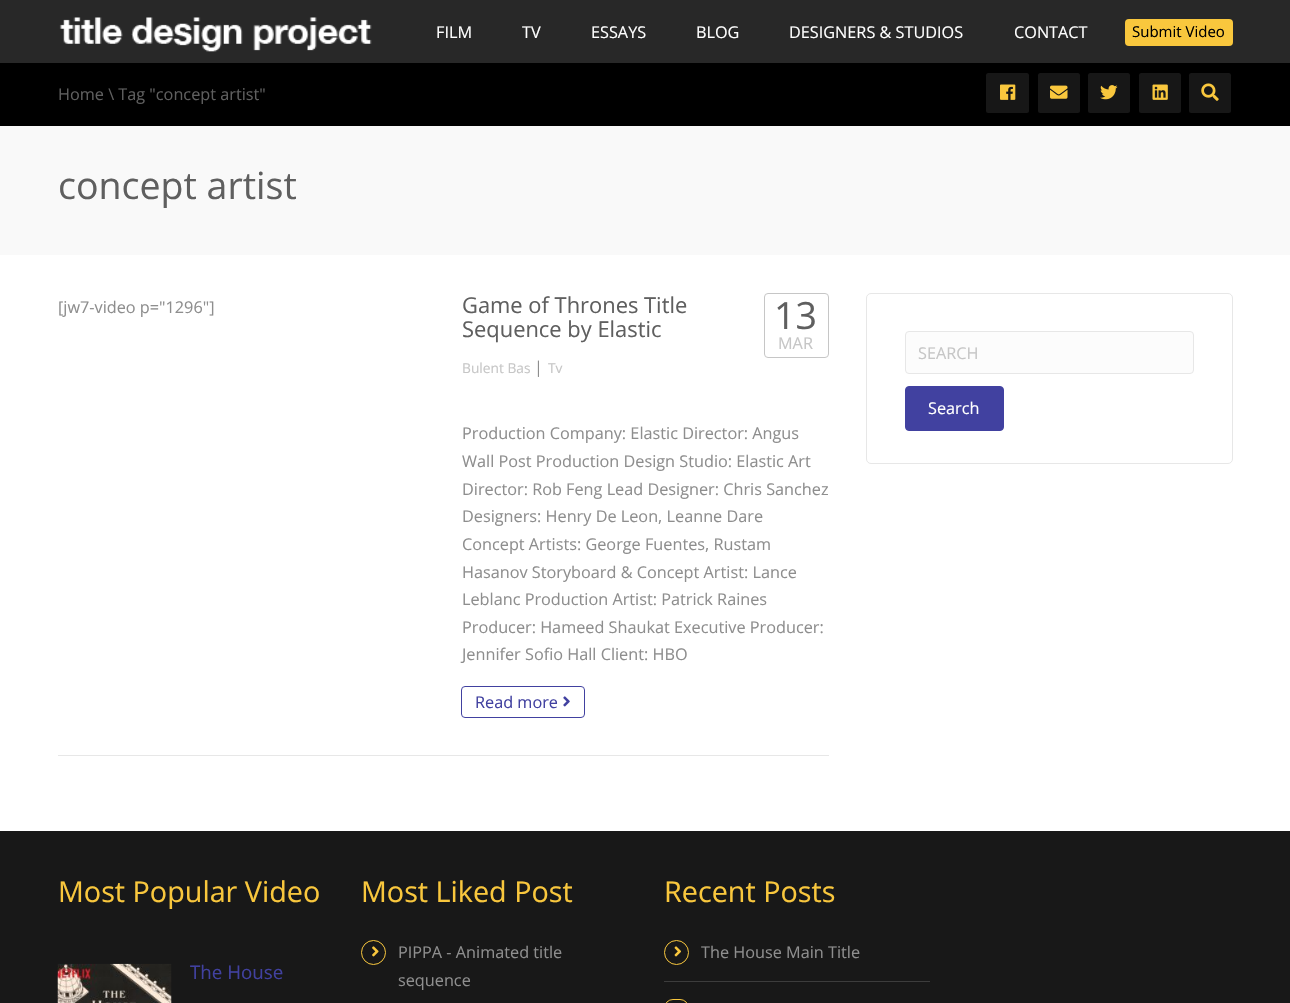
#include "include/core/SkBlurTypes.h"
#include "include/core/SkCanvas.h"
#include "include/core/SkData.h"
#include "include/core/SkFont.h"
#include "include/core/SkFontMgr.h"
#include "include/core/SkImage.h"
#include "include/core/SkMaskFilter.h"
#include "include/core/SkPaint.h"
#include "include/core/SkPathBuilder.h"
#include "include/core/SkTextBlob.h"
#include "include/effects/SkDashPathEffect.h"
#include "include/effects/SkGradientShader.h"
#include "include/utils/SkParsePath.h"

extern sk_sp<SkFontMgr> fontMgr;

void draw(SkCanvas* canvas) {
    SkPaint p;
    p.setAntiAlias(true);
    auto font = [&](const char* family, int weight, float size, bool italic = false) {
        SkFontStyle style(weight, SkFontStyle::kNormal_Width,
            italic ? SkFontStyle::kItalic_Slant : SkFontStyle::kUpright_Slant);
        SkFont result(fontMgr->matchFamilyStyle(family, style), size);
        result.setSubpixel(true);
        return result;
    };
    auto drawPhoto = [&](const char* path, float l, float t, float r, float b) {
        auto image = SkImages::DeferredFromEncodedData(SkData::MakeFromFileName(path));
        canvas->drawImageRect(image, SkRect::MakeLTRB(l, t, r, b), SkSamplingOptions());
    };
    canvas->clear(0xFFFFFFFF);
    p.setColor(0xFF282828);
    canvas->drawRect(SkRect::MakeLTRB(0, 0, 1290, 63), p);
    drawPhoto("media/1.png", 59, 17, 372, 52);
    auto font1 = font("Open Sans", 400, 16.25f);
    p.setColor(0xFFFFFFFF);
    {
        const struct { const char* s; float x, y; } items[] = {
            {"FILM", 436, 38},
            {"TV", 522, 38},
            {"ESSAYS", 591, 38},
            {"BLOG", 696, 38},
            {"DESIGNERS & STUDIOS", 789, 38},
            {"CONTACT", 1014, 38},
        };
        for (auto [s, x, y] : items) {
            canvas->drawString(s, x, y, font1, p);
        }
    }
    p.setColor(0xFFF9C73D);
    canvas->drawRoundRect(SkRect::MakeLTRB(1125, 19, 1233, 46), 4, 4, p);
    auto font2 = font("Open Sans", 400, 15);
    p.setColor(0xFF000000);
    canvas->drawString("Submit Video", 1132, 37, font2, p);
    canvas->drawRect(SkRect::MakeLTRB(0, 63, 1290, 126), p);
    p.setColor(0xFF5F5F5F);
    canvas->drawString("Home \\ Tag \"concept artist\"", 58, 100, font1, p);
    p.setColor(0xFF171717);
    canvas->drawRoundRect(SkRect::MakeLTRB(986, 73, 1029, 113), 2.5f, 2.5f, p);
    drawPhoto("media/2.png", 1000, 84, 1016, 100);
    canvas->drawRoundRect(SkRect::MakeLTRB(1038, 73, 1080, 113), 2.5f, 2.5f, p);
    drawPhoto("media/3.png", 1050, 85, 1068, 99);
    canvas->drawRoundRect(SkRect::MakeLTRB(1088, 73, 1130, 113), 2.5f, 2.5f, p);
    drawPhoto("media/4.png", 1100, 85, 1118, 100);
    canvas->drawRoundRect(SkRect::MakeLTRB(1139, 73, 1181, 113), 2.5f, 2.5f, p);
    drawPhoto("media/5.png", 1152, 84, 1168, 100);
    canvas->drawRoundRect(SkRect::MakeLTRB(1189, 73, 1231, 113), 2.5f, 2.5f, p);
    drawPhoto("media/6.png", 1201, 83, 1219, 101);
    p.setColor(0xFFF9F9F9);
    canvas->drawRect(SkRect::MakeLTRB(0, 126, 1290, 255), p);
    auto font3 = font("Open Sans", 400, 37.5f);
    p.setColor(0xFF5F5F5F);
    canvas->drawString("concept artist", 58, 199, font3, p);
    p.setColor(0xFFE7E7E7);
    canvas->drawRect(SkRect::MakeLTRB(58, 755, 829, 756), p);
    p.setColor(0xFF8E8E8E);
    canvas->drawString("[jw7-video p=\"1296\"]", 58, 313, font1, p);
    auto font4 = font("Open Sans", 400, 21.9f);
    p.setColor(0xFF5F5F5F);
    canvas->drawString("Game of Thrones Title", 462, 313, font4, p);
    canvas->drawString("Sequence by Elastic", 462, 337, font4, p);
    auto font5 = font("Open Sans", 400, 13.75f);
    p.setColor(0xFFC6C6C6);
    canvas->drawString("Bulent Bas", 462, 373, font5, p);
    p.setColor(0xFF8E8E8E);
    canvas->drawString("|", 534, 373, font1, p);
    p.setColor(0xFFC6C6C6);
    canvas->drawString("Tv", 548, 373, font5, p);
    p.setStyle(SkPaint::kStroke_Style);
    p.setStrokeWidth(1);
    canvas->drawRoundRect(SkRect::MakeLTRB(764.5f, 293.5f, 828.5f, 357.5f), 3.5f, 3.5f, p);
    p.setStyle(SkPaint::kFill_Style);
    p.setColor(0xFF5F5F5F);
    canvas->drawString("13", 774, 329, font3, p);
    p.setColor(0xFFC6C6C6);
    canvas->drawString("MAR", 778, 349, font1, p);
    p.setColor(0xFF8E8E8E);
    {
        const struct { const char* s; float x, y; } items[] = {
            {"Production Company: Elastic Director: Angus", 462, 439},
            {"Wall Post Production Design Studio: Elastic Art", 462, 467},
            {"Director: Rob Feng Lead Designer: Chris Sanchez", 462, 495},
            {"Designers: Henry De Leon, Leanne Dare", 462, 522},
            {"Concept Artists: George Fuentes, Rustam", 462, 550},
            {"Hasanov Storyboard & Concept Artist: Lance", 462, 578},
            {"Leblanc Production Artist: Patrick Raines", 462, 605},
            {"Producer: Hameed Shaukat Executive Producer:", 462, 633},
            {"Jennifer Sofio Hall Client: HBO", 462, 660},
        };
        for (auto [s, x, y] : items) {
            canvas->drawString(s, x, y, font1, p);
        }
    }
    p.setStyle(SkPaint::kStroke_Style);
    p.setColor(0xFF4141A0);
    canvas->drawRoundRect(SkRect::MakeLTRB(461.5f, 686.5f, 584.5f, 717.5f), 3.5f, 3.5f, p);
    p.setStyle(SkPaint::kFill_Style);
    canvas->drawString("Read more", 475, 708, font1, p);
    drawPhoto("media/7.png", 563, 696, 570, 707);
    p.setStyle(SkPaint::kStroke_Style);
    p.setColor(0xFFE7E7E7);
    canvas->drawRoundRect(SkRect::MakeLTRB(866.5f, 293.5f, 1232.5f, 463.5f), 4.5f, 4.5f, p);
    p.setStyle(SkPaint::kFill_Style);
    p.setColor(0xFFFCFCFC);
    canvas->drawRoundRect(SkRect::MakeLTRB(905.5f, 331.5f, 1193.5f, 373.5f), 3.5f, 3.5f, p);
    p.setStyle(SkPaint::kStroke_Style);
    p.setColor(0xFFE7E7E7);
    canvas->drawRoundRect(SkRect::MakeLTRB(905.5f, 331.5f, 1193.5f, 373.5f), 3.5f, 3.5f, p);
    p.setStyle(SkPaint::kFill_Style);
    p.setColor(0xFFC6C6C6);
    canvas->drawString("SEARCH", 918, 359, font1, p);
    p.setColor(0xFF4141A0);
    canvas->drawRoundRect(SkRect::MakeLTRB(905.5f, 386.5f, 1003.5f, 430.5f), 3.5f, 3.5f, p);
    p.setStyle(SkPaint::kStroke_Style);
    canvas->drawRoundRect(SkRect::MakeLTRB(905.5f, 386.5f, 1003.5f, 430.5f), 3.5f, 3.5f, p);
    p.setStyle(SkPaint::kFill_Style);
    p.setColor(0xFFFFFFFF);
    canvas->drawString("Search", 928, 414, font1, p);
    p.setColor(0xFF181818);
    canvas->drawRect(SkRect::MakeLTRB(0, 831, 1290, 1003), p);
    auto font6 = font("Open Sans", 400, 28.75f);
    p.setColor(0xFFF9C73D);
    canvas->drawString("Most Popular Video", 58, 902, font6, p);
    drawPhoto("media/8.png", 57, 963, 172, 1003);
    auto font7 = font("Open Sans", 400, 18.75f);
    p.setColor(0xFF4141A0);
    canvas->drawString("The House", 190, 979, font7, p);
    p.setColor(0xFFF9C73D);
    canvas->drawString("Most Liked Post", 361, 902, font6, p);
    p.setStyle(SkPaint::kStroke_Style);
    canvas->drawCircle(373.5f, 952.5f, 12, p);
    drawPhoto("media/9.png", 372, 946, 379, 957);
    p.setStyle(SkPaint::kFill_Style);
    p.setColor(0xFF8E8E8E);
    canvas->drawString("PIPPA - Animated title", 398, 958, font1, p);
    canvas->drawString("sequence", 398, 986, font1, p);
    p.setColor(0xFFF9C73D);
    canvas->drawString("Recent Posts", 664, 902, font6, p);
    p.setColor(0xFF3C3C3C);
    canvas->drawRect(SkRect::MakeLTRB(664, 981, 930, 982), p);
    p.setStyle(SkPaint::kStroke_Style);
    p.setColor(0xFFF9C73D);
    canvas->drawCircle(676.5f, 952.5f, 12, p);
    drawPhoto("media/10.png", 674, 946, 681, 957);
    p.setStyle(SkPaint::kFill_Style);
    p.setColor(0xFF8E8E8E);
    canvas->drawString("The House Main Title", 701, 958, font1, p);
    p.setStyle(SkPaint::kStroke_Style);
    p.setColor(0xFFF9C73D);
    canvas->drawRoundRect(SkRect::MakeLTRB(664.5f, 999.5f, 688.5f, 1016.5f), 12, 12, p);
}
